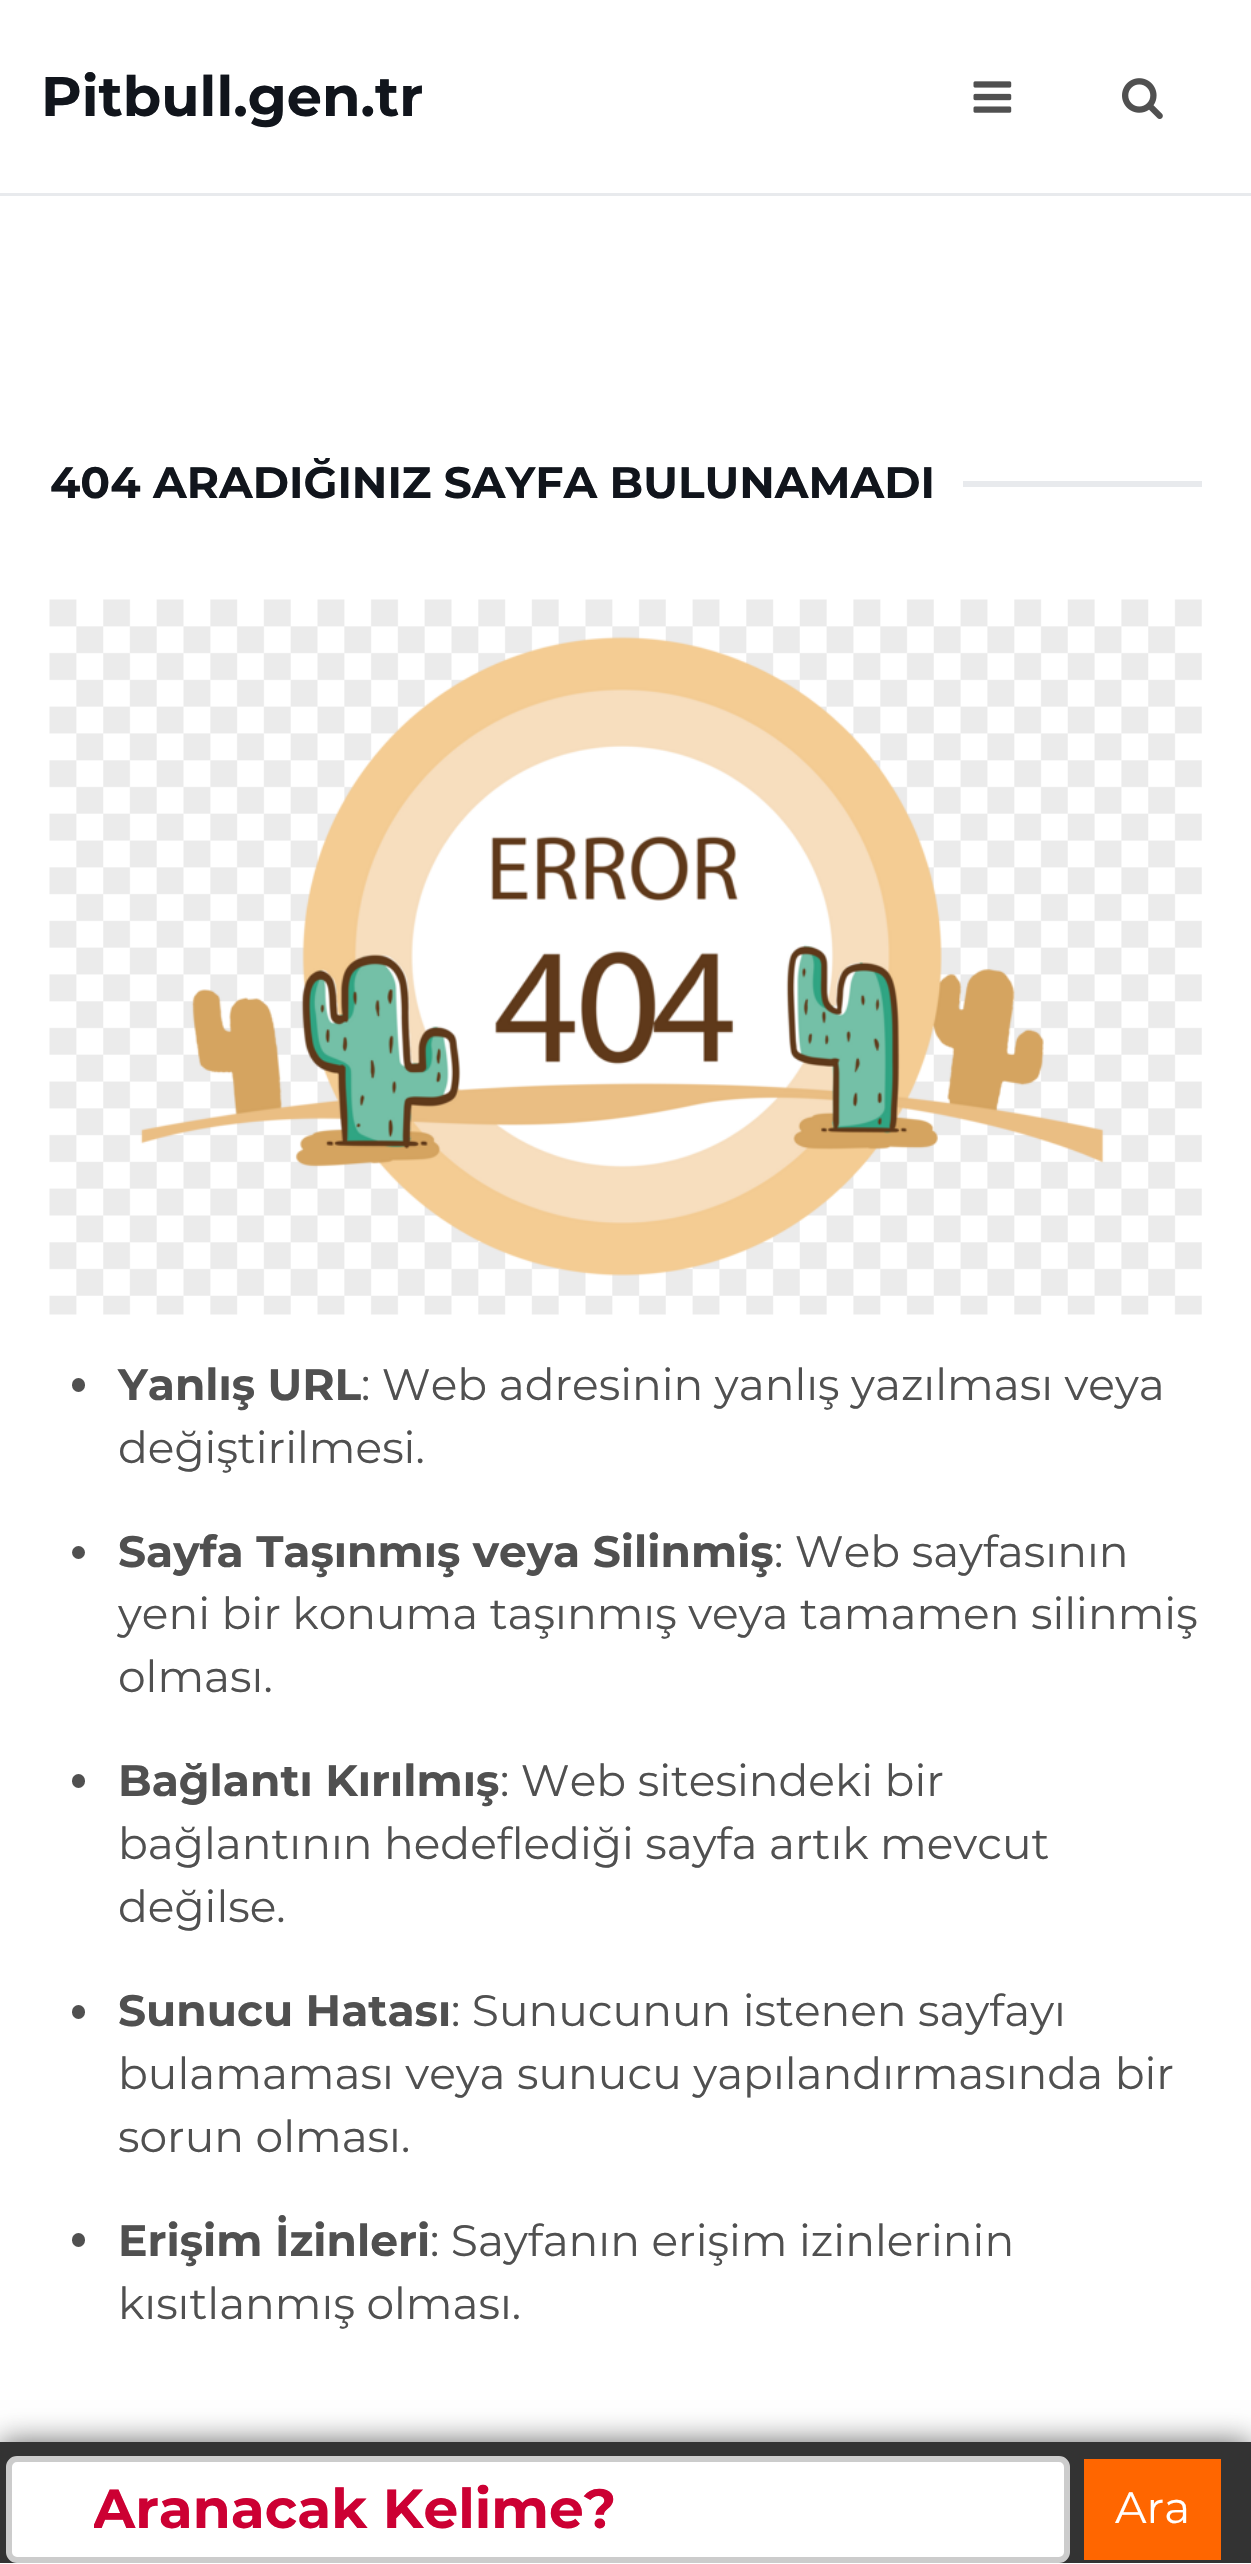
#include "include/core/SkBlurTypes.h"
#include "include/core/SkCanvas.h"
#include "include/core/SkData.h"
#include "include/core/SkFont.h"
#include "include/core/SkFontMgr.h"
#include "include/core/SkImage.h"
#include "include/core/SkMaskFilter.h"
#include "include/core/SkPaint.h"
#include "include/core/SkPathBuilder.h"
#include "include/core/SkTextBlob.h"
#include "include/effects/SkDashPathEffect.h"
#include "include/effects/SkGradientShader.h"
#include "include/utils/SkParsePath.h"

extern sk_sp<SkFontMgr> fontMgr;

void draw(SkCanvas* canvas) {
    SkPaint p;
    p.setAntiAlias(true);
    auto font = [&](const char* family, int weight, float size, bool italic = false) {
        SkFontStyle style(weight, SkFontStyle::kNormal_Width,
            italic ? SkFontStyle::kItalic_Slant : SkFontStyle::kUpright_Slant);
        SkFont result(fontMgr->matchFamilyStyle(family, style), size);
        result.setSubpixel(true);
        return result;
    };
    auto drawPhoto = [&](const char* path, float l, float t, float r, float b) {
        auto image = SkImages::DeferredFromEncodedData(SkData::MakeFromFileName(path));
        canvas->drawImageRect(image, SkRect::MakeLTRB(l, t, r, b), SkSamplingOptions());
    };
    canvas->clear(0xFFFFFFFF);
    p.setColor(0xFFE8EAED);
    canvas->drawRect(SkRect::MakeLTRB(0, 193, 1251, 196), p);
    auto font1 = font("Montserrat", 700, 55.75f);
    p.setColor(0xFF11151C);
    canvas->drawString("Pitbull.gen.tr", 41, 116, font1, p);
    drawPhoto("media/1.png", 973, 81, 1012, 113);
    drawPhoto("media/2.png", 1122, 78, 1163, 119);
    auto font2 = font("Montserrat", 700, 44);
    canvas->drawString("404 ARADIĞINIZ SAYFA BULUNAMADI", 50, 498, font2, p);
    p.setColor(0xFFE8EAED);
    canvas->drawRect(SkRect::MakeLTRB(963, 481, 1202, 487), p);
    drawPhoto("media/3.png", 49, 599, 1202, 1315);
    p.setColor(0xFF505050);
    canvas->drawRoundRect(SkRect::MakeLTRB(72, 1378, 85, 1392), 6.5f, 6.5f, p);
    canvas->drawString("Yanlış URL", 118, 1400, font2, p);
    auto font3 = font("Montserrat", 400, 44);
    canvas->drawString(": Web adresinin yanlış yazılması veya", 361, 1400, font3, p);
    canvas->drawString("değiştirilmesi.", 118, 1463, font3, p);
    canvas->drawCircle(78.5f, 1552.5f, 6.5f, p);
    canvas->drawString("Sayfa Taşınmış veya Silinmiş", 118, 1567, font2, p);
    {
        const struct { const char* s; float x, y; } items[] = {
            {": Web sayfasının", 774, 1567},
            {"yeni bir konuma taşınmış veya tamamen silinmiş", 118, 1629},
            {"olması.", 118, 1692},
        };
        for (auto [s, x, y] : items) {
            canvas->drawString(s, x, y, font3, p);
        }
    }
    canvas->drawRoundRect(SkRect::MakeLTRB(72, 1774, 85, 1788), 6.5f, 6.5f, p);
    canvas->drawString("Bağlantı Kırılmış", 118, 1796, font2, p);
    {
        const struct { const char* s; float x, y; } items[] = {
            {": Web sitesindeki bir", 500, 1796},
            {"bağlantının hedeflediği sayfa artık mevcut", 118, 1859},
            {"değilse.", 118, 1922},
        };
        for (auto [s, x, y] : items) {
            canvas->drawString(s, x, y, font3, p);
        }
    }
    canvas->drawRoundRect(SkRect::MakeLTRB(72, 2005, 85, 2019), 6.5f, 6.5f, p);
    canvas->drawString("Sunucu Hatası", 118, 2026, font2, p);
    {
        const struct { const char* s; float x, y; } items[] = {
            {": Sunucunun istenen sayfayı", 451, 2026},
            {"bulamaması veya sunucu yapılandırmasında bir", 118, 2089},
            {"sorun olması.", 118, 2152},
        };
        for (auto [s, x, y] : items) {
            canvas->drawString(s, x, y, font3, p);
        }
    }
    canvas->drawRoundRect(SkRect::MakeLTRB(72, 2233, 85, 2247), 6.5f, 6.5f, p);
    canvas->drawString("Erişim İzinleri", 118, 2256, font2, p);
    canvas->drawString(": Sayfanın erişim izinlerinin", 430, 2256, font3, p);
    canvas->drawString("kısıtlanmış olması.", 118, 2319, font3, p);
    p.setColor(0xFF666666);
    p.setMaskFilter(SkMaskFilter::MakeBlur(kNormal_SkBlurStyle, 14));
    canvas->drawRect(SkRect::MakeLTRB(0, 2442, 1251, 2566), p);
    p.setMaskFilter(nullptr);
    p.setColor(0xFF333333);
    canvas->drawRect(SkRect::MakeLTRB(0, 2442, 1251, 2563), p);
    p.setColor(0xFFFFFFFF);
    canvas->drawRect(SkRect::MakeLTRB(0, 2563, 1251, 2564), p);
    canvas->drawRoundRect(SkRect::MakeLTRB(9, 2459, 1067, 2560), 8, 8, p);
    p.setStyle(SkPaint::kStroke_Style);
    p.setStrokeWidth(6);
    p.setColor(0xFFCCCCCC);
    canvas->drawRoundRect(SkRect::MakeLTRB(9, 2459, 1067, 2560), 8, 8, p);
    canvas->save();
    canvas->clipRect(SkRect::MakeLTRB(94, 2470, 1040, 2549));
    auto font4 = font("Montserrat", 700, 55);
    p.setStyle(SkPaint::kFill_Style);
    p.setColor(0xFFCC0033);
    canvas->drawString("Aranacak Kelime?", 93, 2528, font4, p);
    canvas->restore();
    p.setColor(0xFFFF6600);
    canvas->drawRect(SkRect::MakeLTRB(1084, 2459, 1221, 2560), p);
    p.setColor(0xFFFFFFFF);
    canvas->drawString("Ara", 1115, 2523, font3, p);
}
